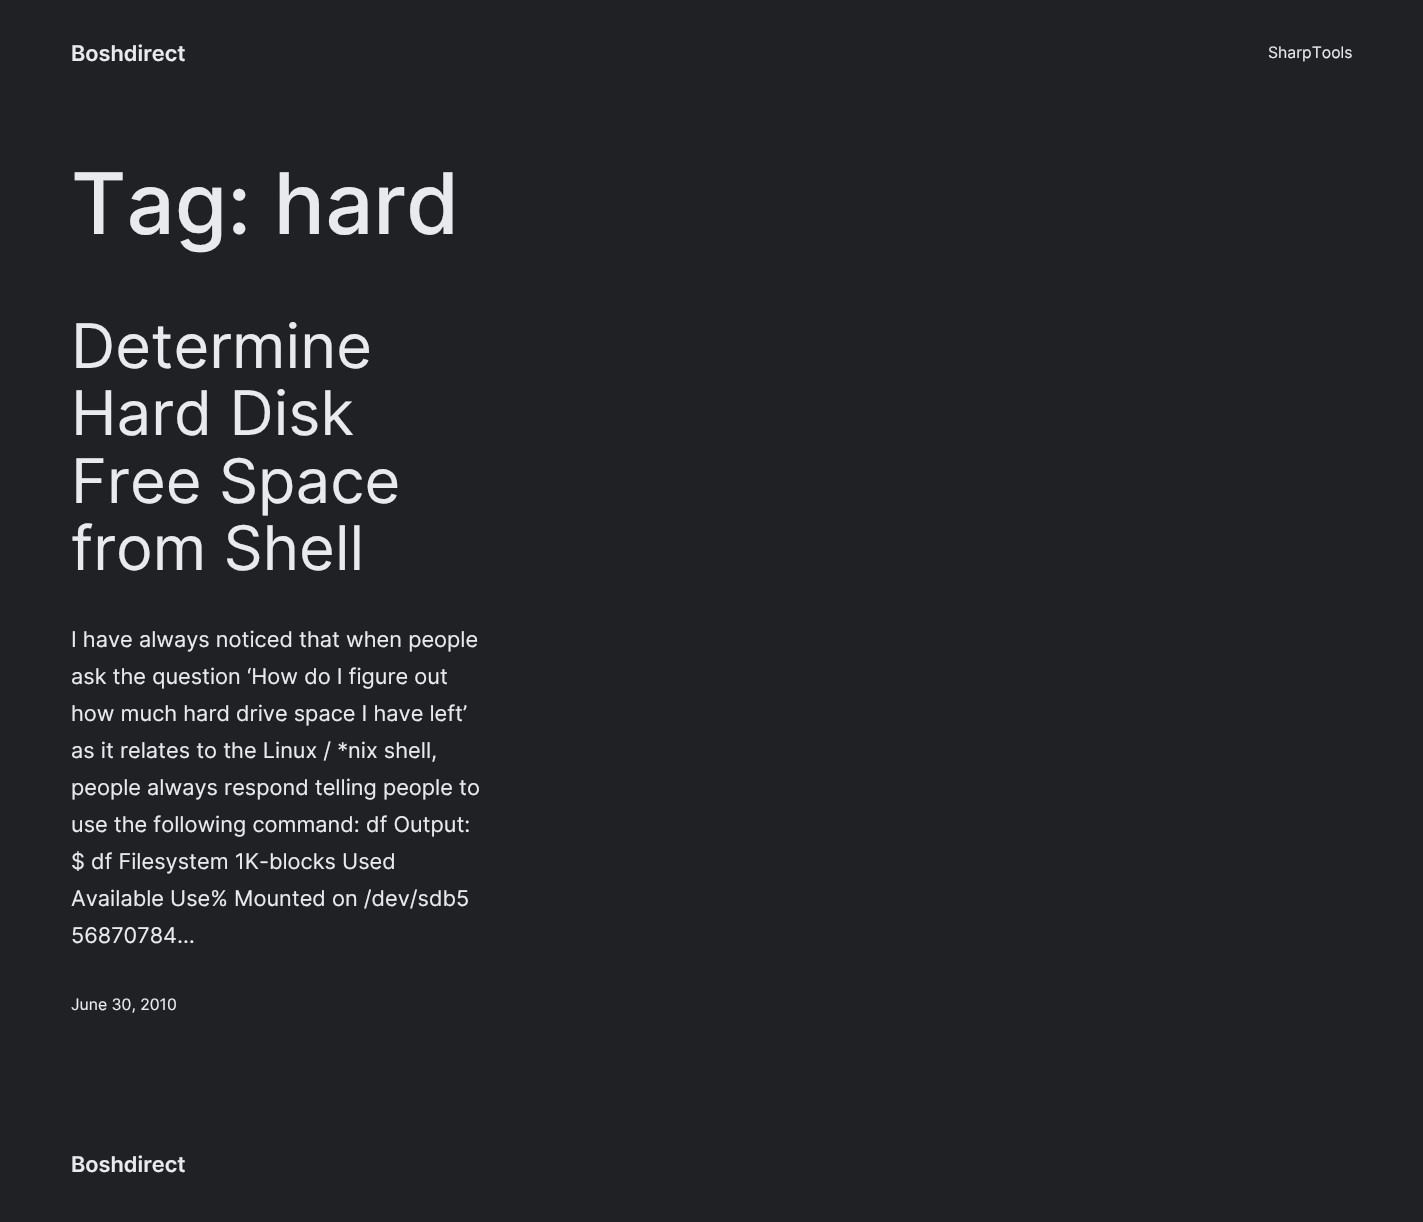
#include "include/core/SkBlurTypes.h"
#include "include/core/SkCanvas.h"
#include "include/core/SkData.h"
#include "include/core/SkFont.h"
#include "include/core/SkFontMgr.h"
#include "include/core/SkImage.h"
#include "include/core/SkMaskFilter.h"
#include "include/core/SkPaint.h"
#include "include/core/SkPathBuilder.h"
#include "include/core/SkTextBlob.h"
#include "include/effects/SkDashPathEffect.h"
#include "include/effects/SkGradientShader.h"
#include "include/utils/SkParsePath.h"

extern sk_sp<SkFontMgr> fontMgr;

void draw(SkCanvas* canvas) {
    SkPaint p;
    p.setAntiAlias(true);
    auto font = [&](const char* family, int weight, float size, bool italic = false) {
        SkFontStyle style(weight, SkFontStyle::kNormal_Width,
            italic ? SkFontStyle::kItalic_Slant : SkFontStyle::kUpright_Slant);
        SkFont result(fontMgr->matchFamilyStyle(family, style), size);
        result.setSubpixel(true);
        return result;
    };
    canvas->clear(0xFF202124);
    auto font1 = font("Inter", 600, 21.75f);
    p.setColor(0xFFE8EAED);
    canvas->drawString("Boshdirect", 71, 61, font1, p);
    auto font2 = font("Inter", 400, 15.75f);
    canvas->drawString("SharpTools", 1268, 58, font2, p);
    auto font3 = font("Inter", 500, 85);
    canvas->drawString("Tag: hard", 71, 234, font3, p);
    auto font4 = font("Inter", 400, 61.5f);
    {
        const struct { const char* s; float x, y; } items[] = {
            {"Determine", 71, 368},
            {"Hard Disk", 71, 435},
            {"Free Space", 71, 503},
            {"from Shell", 71, 570},
        };
        for (auto [s, x, y] : items) {
            canvas->drawString(s, x, y, font4, p);
        }
    }
    auto font5 = font("Inter", 400, 21.75f);
    {
        const struct { const char* s; float x, y; } items[] = {
            {"I have always noticed that when people", 71, 647},
            {"ask the question ‘How do I figure out", 71, 684},
            {"how much hard drive space I have left’", 71, 721},
            {"as it relates to the Linux / *nix shell,", 71, 758},
            {"people always respond telling people to", 71, 795},
            {"use the following command: df Output:", 71, 832},
            {"$ df Filesystem 1K-blocks Used", 71, 869},
            {"Available Use% Mounted on /dev/sdb5", 71, 906},
            {"56870784…", 71, 943},
        };
        for (auto [s, x, y] : items) {
            canvas->drawString(s, x, y, font5, p);
        }
    }
    canvas->drawString("June 30, 2010", 71, 1010, font2, p);
    canvas->drawString("Boshdirect", 71, 1172, font1, p);
}
